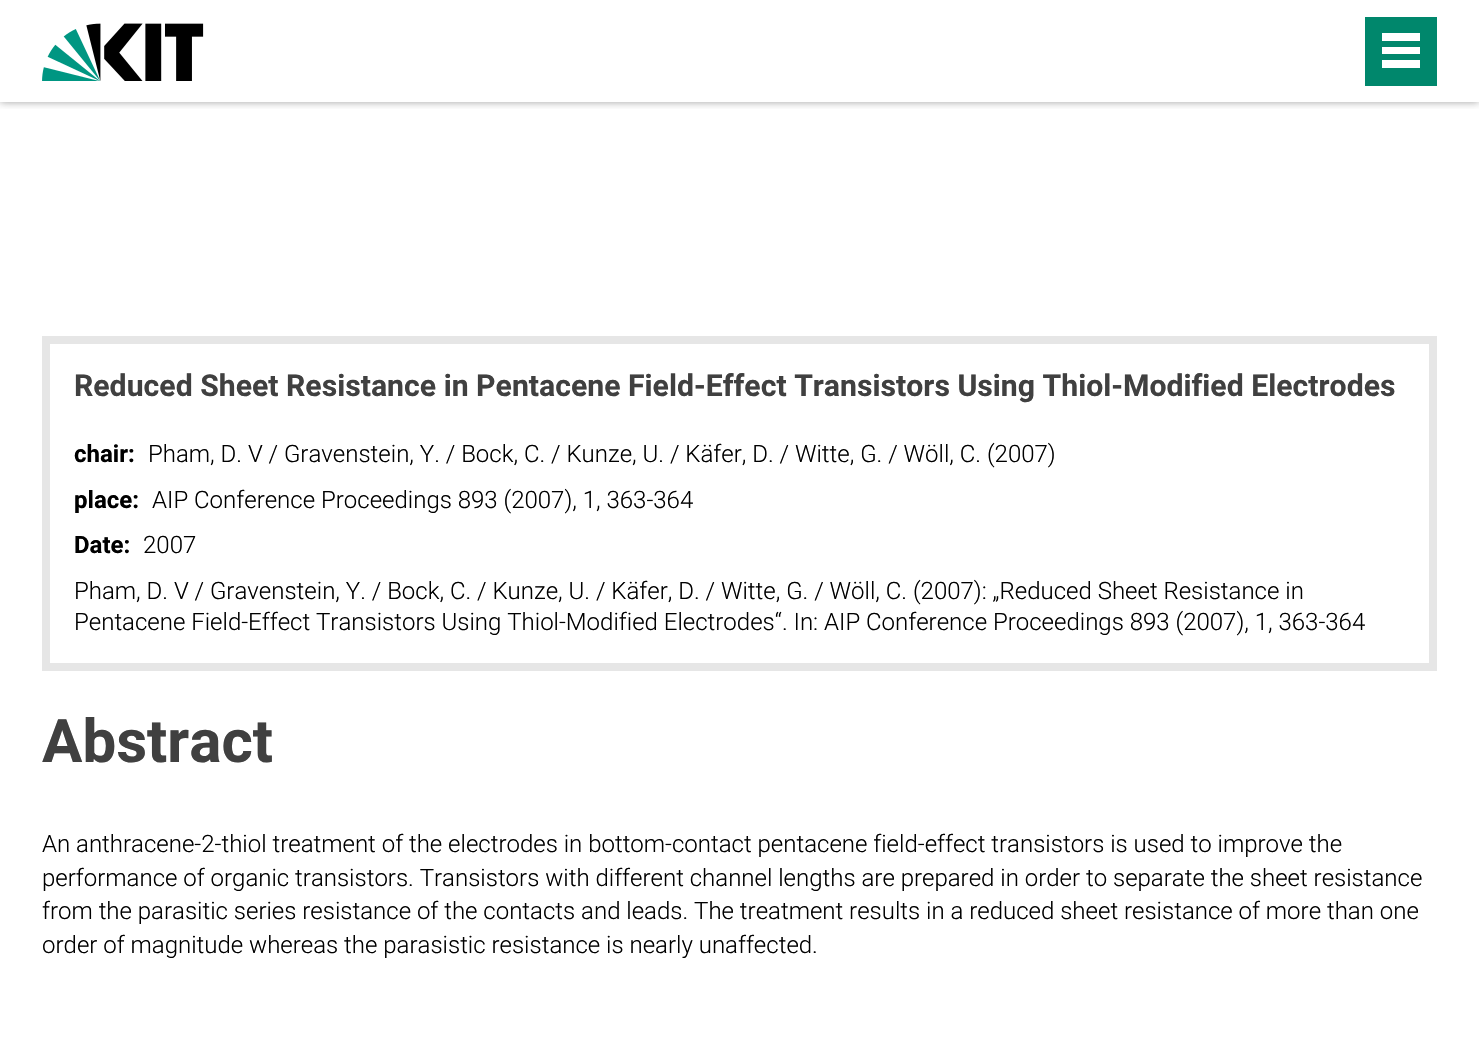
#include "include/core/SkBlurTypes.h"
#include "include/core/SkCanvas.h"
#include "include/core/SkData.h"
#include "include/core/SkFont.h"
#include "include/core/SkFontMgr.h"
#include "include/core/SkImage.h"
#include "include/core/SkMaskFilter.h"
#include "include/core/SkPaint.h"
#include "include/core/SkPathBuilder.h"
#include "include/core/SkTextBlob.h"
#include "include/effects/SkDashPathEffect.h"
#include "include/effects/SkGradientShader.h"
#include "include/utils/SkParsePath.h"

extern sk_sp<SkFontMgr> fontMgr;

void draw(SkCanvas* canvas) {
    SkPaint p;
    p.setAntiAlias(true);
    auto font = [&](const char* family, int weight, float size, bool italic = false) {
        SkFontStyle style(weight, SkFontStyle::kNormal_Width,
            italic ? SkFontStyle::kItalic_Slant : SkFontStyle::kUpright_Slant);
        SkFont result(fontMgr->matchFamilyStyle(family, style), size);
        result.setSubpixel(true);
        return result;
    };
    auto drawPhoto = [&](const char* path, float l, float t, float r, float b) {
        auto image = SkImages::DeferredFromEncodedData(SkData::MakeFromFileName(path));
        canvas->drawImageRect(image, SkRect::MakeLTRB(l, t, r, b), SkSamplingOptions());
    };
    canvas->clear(0xFFFFFFFF);
    canvas->save();
    canvas->clipRect(SkRect::MakeLTRB(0, 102, 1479, 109));
    p.setColor(0x80404040);
    p.setMaskFilter(SkMaskFilter::MakeBlur(kNormal_SkBlurStyle, 4));
    canvas->drawRect(SkRect::MakeLTRB(0, 0, 1479, 102), p);
    p.setMaskFilter(nullptr);
    canvas->restore();
    drawPhoto("media/1.png", 42, 23, 204, 81);
    {
        const struct { float l, t, r, b; SkColor color; } items[] = {
            {1365, 17, 1437, 86, 0xFF00876C},
            {1382, 60, 1420, 68, 0xFFFFFFFF},
            {1382, 47, 1420, 54, 0xFFFFFFFF},
            {1382, 33, 1420, 41, 0xFFFFFFFF},
        };
        for (auto [l, t, r, b, color] : items) {
            p.setColor(color);
            canvas->drawRect(SkRect::MakeLTRB(l, t, r, b), p);
        }
    }
    p.setStyle(SkPaint::kStroke_Style);
    p.setStrokeWidth(8);
    p.setColor(0xFFE6E6E6);
    canvas->drawRect(SkRect::MakeLTRB(46, 340, 1433, 667), p);
    auto font1 = font("Roboto", 700, 30.2f);
    p.setStyle(SkPaint::kFill_Style);
    p.setColor(0xFF404040);
    canvas->drawString("Reduced Sheet Resistance in Pentacene Field-Effect Transistors Using Thiol-Modified Electrodes", 74, 396, font1, p);
    auto font2 = font("Roboto", 700, 24);
    p.setColor(0xFF000000);
    canvas->drawString("chair:", 74, 462, font2, p);
    auto font3 = font("Roboto", 300, 24);
    canvas->drawString("Pham, D. V / Gravenstein, Y. / Bock, C. / Kunze, U. / Käfer, D. / Witte, G. / Wöll, C. (2007)", 148, 462, font3, p);
    canvas->drawString("place:", 74, 508, font2, p);
    canvas->drawString("AIP Conference Proceedings 893 (2007), 1, 363-364", 152, 508, font3, p);
    canvas->drawString("Date:", 74, 553, font2, p);
    {
        const struct { const char* s; float x, y; } items[] = {
            {"2007", 143, 553},
            {"Pham, D. V / Gravenstein, Y. / Bock, C. / Kunze, U. / Käfer, D. / Witte, G. / Wöll, C. (2007): „Reduced Sheet Resistance in", 74, 599},
            {"Pentacene Field-Effect Transistors Using Thiol-Modified Electrodes“. In: AIP Conference Proceedings 893 (2007), 1, 363-364", 74, 630},
        };
        for (auto [s, x, y] : items) {
            canvas->drawString(s, x, y, font3, p);
        }
    }
    auto font4 = font("Roboto", 700, 60);
    p.setColor(0xFF404040);
    canvas->drawString("Abstract", 42, 762, font4, p);
    p.setColor(0xFF000000);
    {
        const struct { const char* s; float x, y; } items[] = {
            {"An anthracene-2-thiol treatment of the electrodes in bottom-contact pentacene field-effect transistors is used to improve the", 42, 852},
            {"performance of organic transistors. Transistors with different channel lengths are prepared in order to separate the sheet resistance", 42, 886},
            {"from the parasitic series resistance of the contacts and leads. The treatment results in a reduced sheet resistance of more than one", 42, 919},
            {"order of magnitude whereas the parasistic resistance is nearly unaffected.", 42, 953},
        };
        for (auto [s, x, y] : items) {
            canvas->drawString(s, x, y, font3, p);
        }
    }
}
